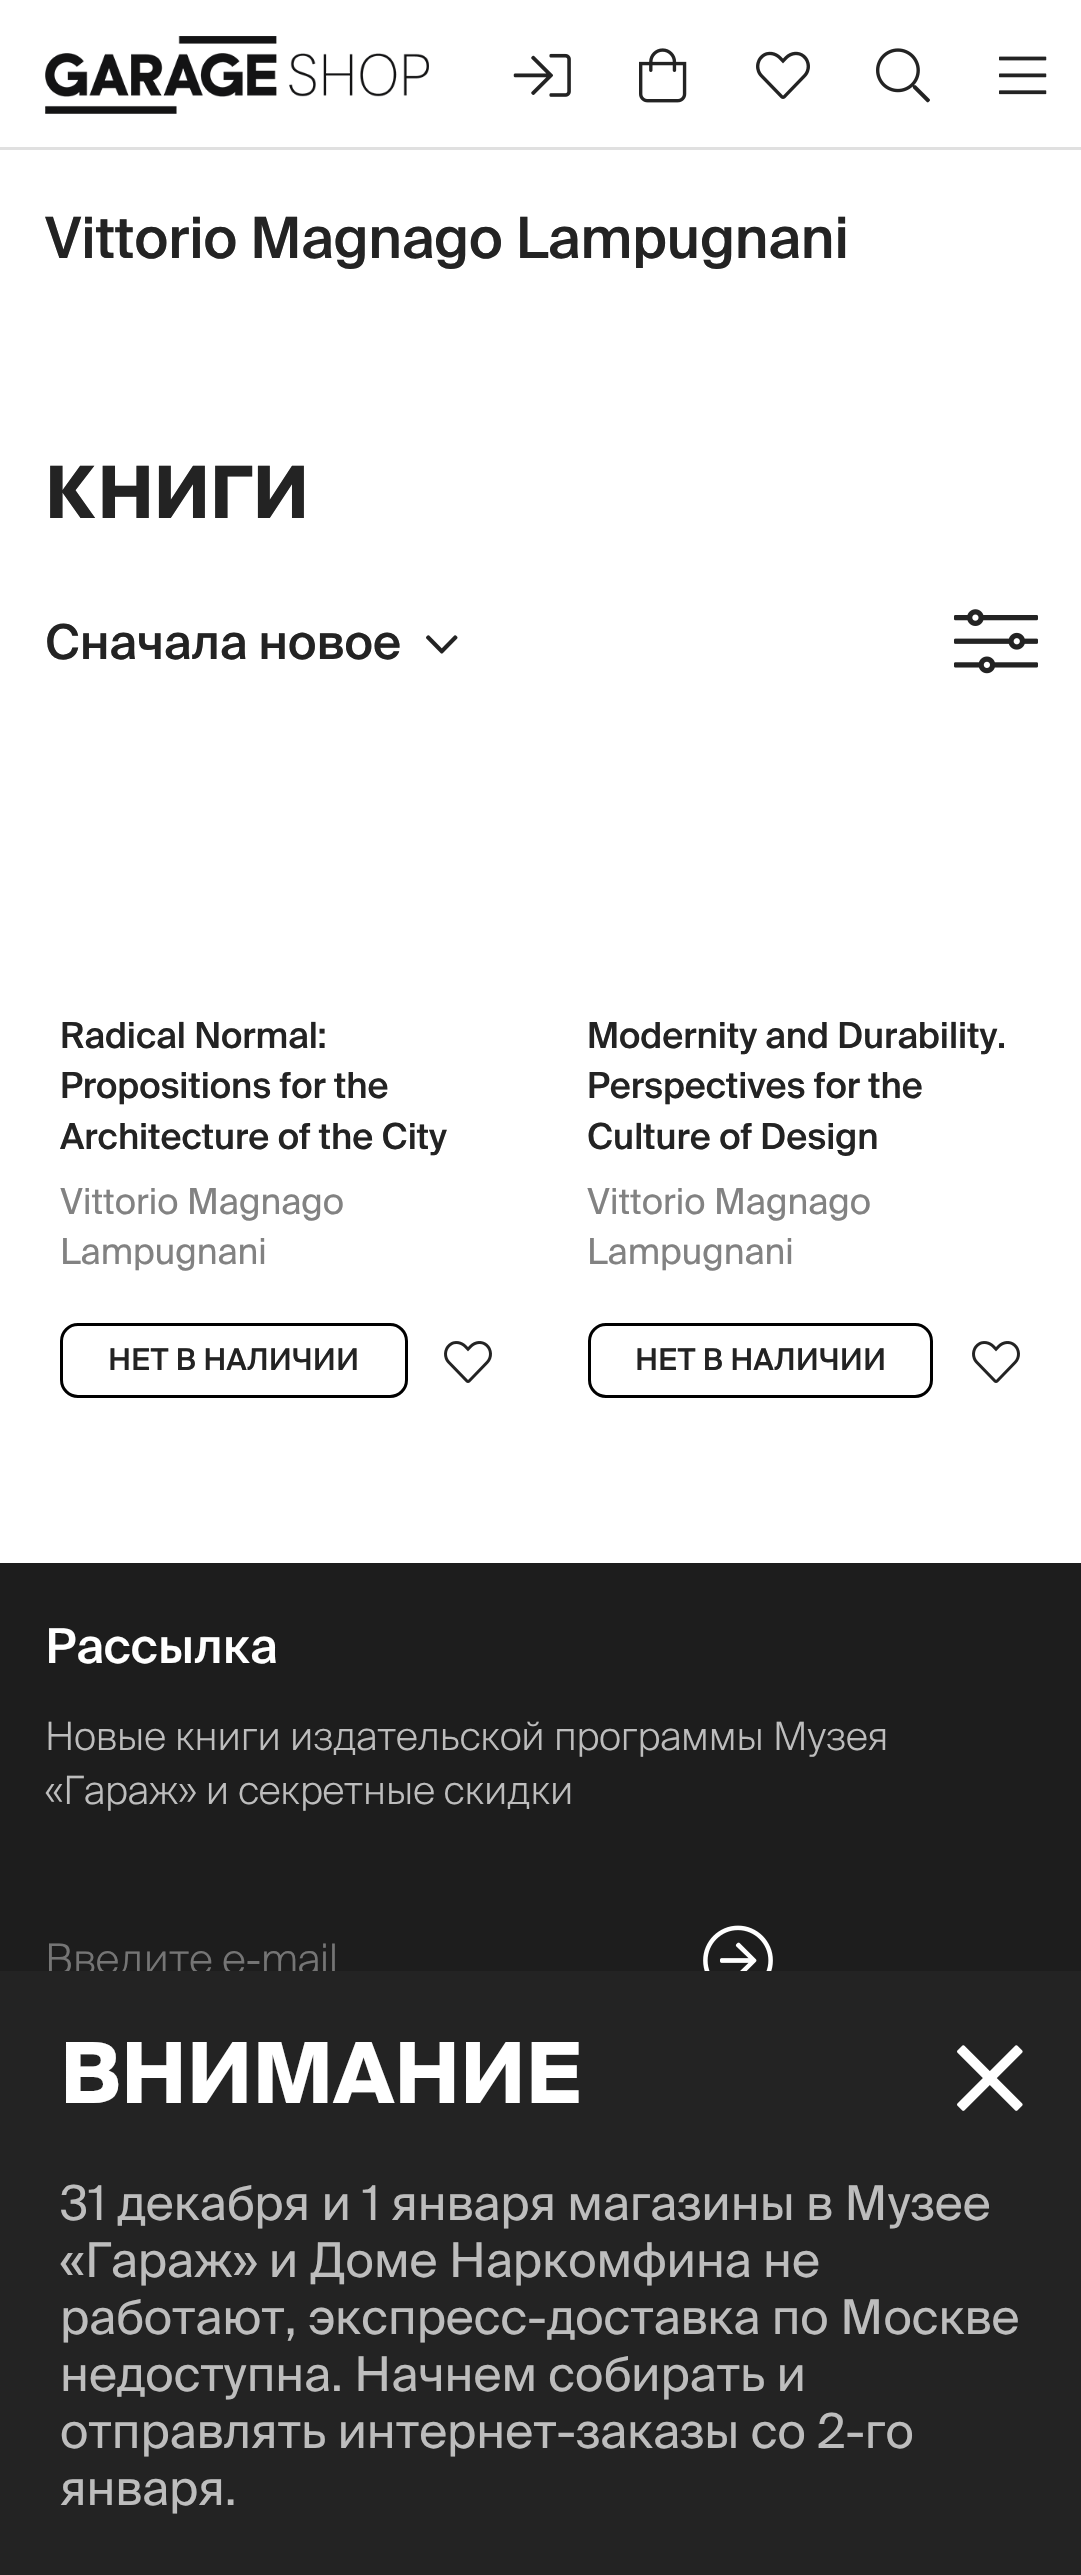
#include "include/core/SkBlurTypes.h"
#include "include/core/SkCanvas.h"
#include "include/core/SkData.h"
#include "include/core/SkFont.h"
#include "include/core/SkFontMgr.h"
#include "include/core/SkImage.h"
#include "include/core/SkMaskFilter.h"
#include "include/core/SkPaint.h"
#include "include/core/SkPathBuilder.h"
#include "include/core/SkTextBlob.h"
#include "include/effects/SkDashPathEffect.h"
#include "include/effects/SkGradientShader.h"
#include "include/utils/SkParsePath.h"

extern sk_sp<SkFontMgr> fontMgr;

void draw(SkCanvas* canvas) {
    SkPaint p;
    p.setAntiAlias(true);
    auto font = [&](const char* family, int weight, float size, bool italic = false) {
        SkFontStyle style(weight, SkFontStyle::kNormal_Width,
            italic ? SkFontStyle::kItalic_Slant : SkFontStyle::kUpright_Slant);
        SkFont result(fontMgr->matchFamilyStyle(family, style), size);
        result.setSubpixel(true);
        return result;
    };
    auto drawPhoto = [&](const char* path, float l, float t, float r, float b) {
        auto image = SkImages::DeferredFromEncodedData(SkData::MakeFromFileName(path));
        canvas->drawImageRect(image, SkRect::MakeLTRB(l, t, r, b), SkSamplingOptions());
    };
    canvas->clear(0xFFFFFFFF);
    p.setColor(0xFFE0E0E0);
    canvas->drawRect(SkRect::MakeLTRB(0, 147, 1081, 150), p);
    drawPhoto("media/1.png", 45, 36, 429, 114);
    drawPhoto("media/2.png", 513, 53, 571, 97);
    drawPhoto("media/3.png", 639, 48, 687, 103);
    drawPhoto("media/4.png", 756, 51, 810, 99);
    drawPhoto("media/5.png", 876, 48, 930, 103);
    drawPhoto("media/6.png", 999, 56, 1047, 95);
    auto font1 = font("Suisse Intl", 500, 57);
    p.setColor(0xFF232323);
    canvas->drawString("Vittorio Magnago Lampugnani", 45, 258, font1, p);
    auto font2 = font("Suisse Intl", 700, 72);
    canvas->drawString("КНИГИ", 45, 518, font2, p);
    auto font3 = font("Suisse Intl", 500, 48);
    canvas->drawString("Сначала новое", 45, 659, font3, p);
    drawPhoto("media/7.png", 426, 635, 458, 654);
    drawPhoto("media/8.png", 954, 609, 1038, 674);
    auto font4 = font("Suisse Intl", 500, 36);
    {
        const struct { const char* s; float x, y; } items[] = {
            {"Radical Normal:", 60, 1048},
            {"Propositions for the", 60, 1098},
            {"Architecture of the City", 60, 1149},
        };
        for (auto [s, x, y] : items) {
            canvas->drawString(s, x, y, font4, p);
        }
    }
    auto font5 = font("Suisse Intl", 400, 36);
    p.setColor(0xFF828282);
    canvas->drawString("Vittorio Magnago", 60, 1214, font5, p);
    canvas->drawString("Lampugnani", 60, 1264, font5, p);
    p.setStyle(SkPaint::kStroke_Style);
    p.setStrokeWidth(3);
    p.setColor(0xFF000000);
    canvas->drawRoundRect(SkRect::MakeLTRB(61.5f, 1324.5f, 406.5f, 1396.5f), 16.5f, 16.5f, p);
    auto font6 = font("Suisse Intl", 500, 30);
    p.setStyle(SkPaint::kFill_Style);
    p.setColor(0xFF232323);
    canvas->drawString("НЕТ В НАЛИЧИИ", 108, 1370, font6, p);
    drawPhoto("media/9.png", 444, 1341, 492, 1383);
    {
        const struct { const char* s; float x, y; } items[] = {
            {"Modernity and Durability.", 587, 1048},
            {"Perspectives for the", 587, 1098},
            {"Culture of Design", 587, 1149},
        };
        for (auto [s, x, y] : items) {
            canvas->drawString(s, x, y, font4, p);
        }
    }
    p.setColor(0xFF828282);
    canvas->drawString("Vittorio Magnago", 587, 1214, font5, p);
    canvas->drawString("Lampugnani", 587, 1264, font5, p);
    p.setStyle(SkPaint::kStroke_Style);
    p.setColor(0xFF000000);
    canvas->drawRoundRect(SkRect::MakeLTRB(589.5f, 1324.5f, 931.5f, 1396.5f), 16.5f, 16.5f, p);
    p.setStyle(SkPaint::kFill_Style);
    p.setColor(0xFF232323);
    canvas->drawString("НЕТ В НАЛИЧИИ", 635, 1370, font6, p);
    drawPhoto("media/9.png", 972, 1341, 1020, 1383);
    p.setColor(0xFF1D1D1D);
    canvas->drawRect(SkRect::MakeLTRB(0, 1563, 1081, 1971), p);
    p.setColor(0xFFFFFFFF);
    canvas->drawString("Рассылка", 45, 1663, font3, p);
    auto font7 = font("Suisse Intl", 300, 39);
    p.setColor(0xFFBDBDBD);
    canvas->drawString("Новые книги издательской программы Музея", 45, 1750, font7, p);
    canvas->drawString("«Гараж» и секретные скидки", 45, 1804, font7, p);
    auto font8 = font("Suisse Intl", 300, 42);
    p.setColor(0xFF757575);
    canvas->drawString("Введите e-mail", 45, 1974, font8, p);
    drawPhoto("media/10.png", 703, 1925, 773, 1971);
    p.setColor(0xFF232323);
    canvas->drawRect(SkRect::MakeLTRB(0, 1971, 1081, 2575), p);
    auto font9 = font("Suisse Intl", 700, 84);
    p.setColor(0xFFFFFFFF);
    canvas->drawString("ВНИМАНИЕ", 60, 2103, font9, p);
    drawPhoto("media/11.png", 957, 2045, 1023, 2111);
    auto font10 = font("Suisse Intl", 400, 48);
    p.setColor(0xFFBDBDBD);
    {
        const struct { const char* s; float x, y; } items[] = {
            {"31 декабря и 1 января магазины в Музее", 60, 2220},
            {"«Гараж» и Доме Наркомфина не", 60, 2277},
            {"работают, экспресс-доставка по Москве", 60, 2334},
            {"недоступна. Начнем собирать и", 60, 2391},
            {"отправлять интернет-заказы со 2-го", 60, 2448},
            {"января.", 60, 2505},
        };
        for (auto [s, x, y] : items) {
            canvas->drawString(s, x, y, font10, p);
        }
    }
}
